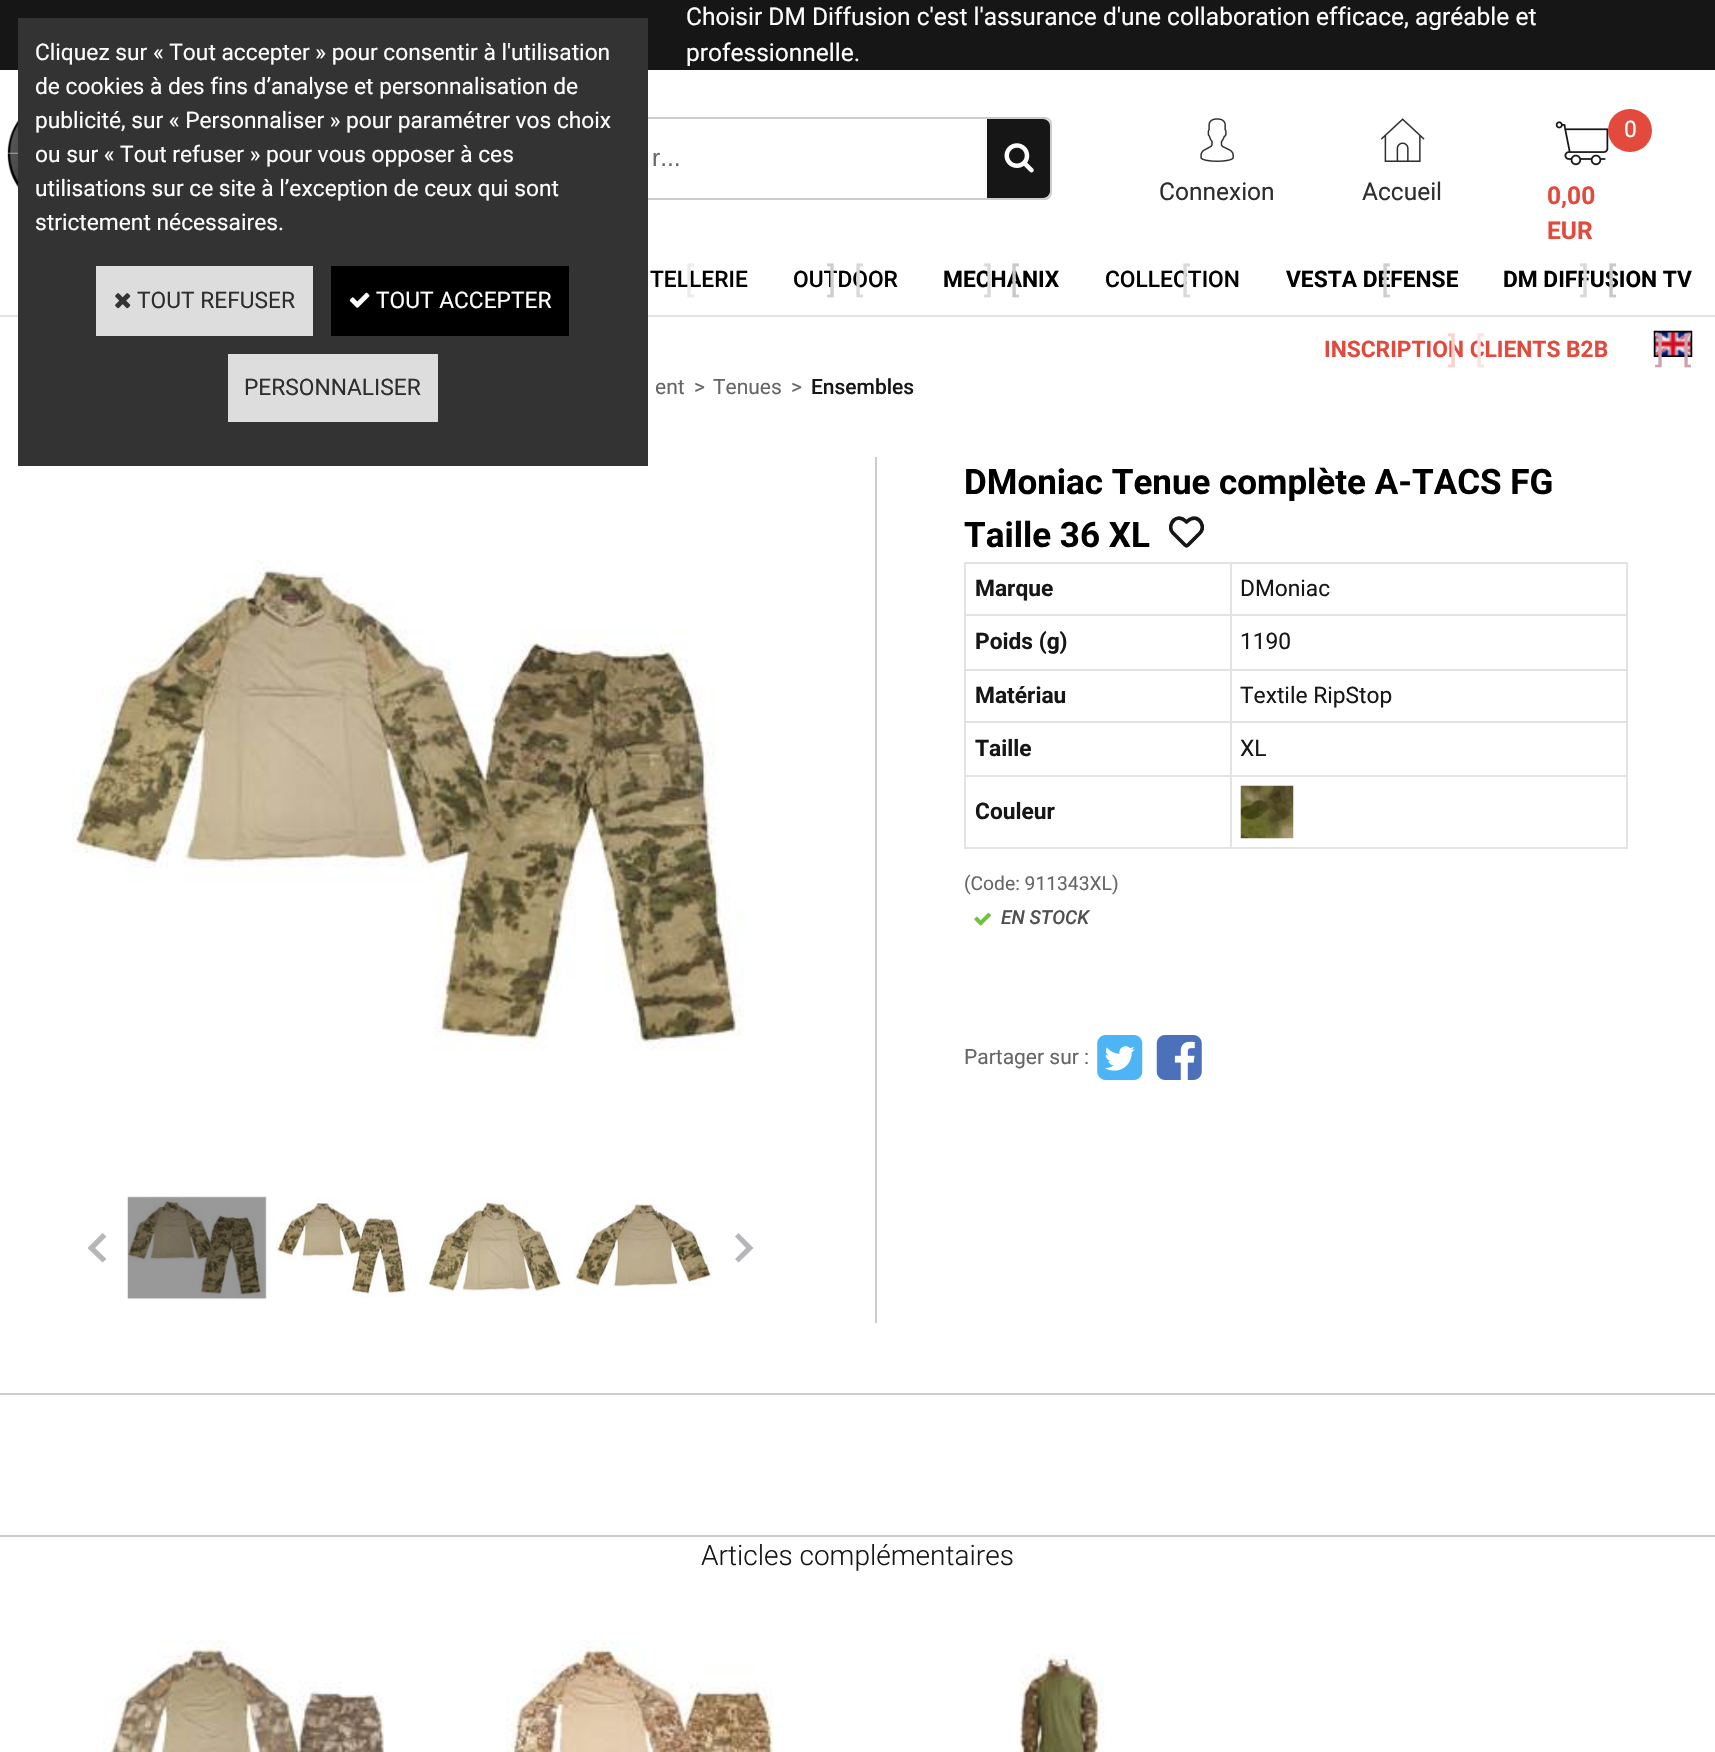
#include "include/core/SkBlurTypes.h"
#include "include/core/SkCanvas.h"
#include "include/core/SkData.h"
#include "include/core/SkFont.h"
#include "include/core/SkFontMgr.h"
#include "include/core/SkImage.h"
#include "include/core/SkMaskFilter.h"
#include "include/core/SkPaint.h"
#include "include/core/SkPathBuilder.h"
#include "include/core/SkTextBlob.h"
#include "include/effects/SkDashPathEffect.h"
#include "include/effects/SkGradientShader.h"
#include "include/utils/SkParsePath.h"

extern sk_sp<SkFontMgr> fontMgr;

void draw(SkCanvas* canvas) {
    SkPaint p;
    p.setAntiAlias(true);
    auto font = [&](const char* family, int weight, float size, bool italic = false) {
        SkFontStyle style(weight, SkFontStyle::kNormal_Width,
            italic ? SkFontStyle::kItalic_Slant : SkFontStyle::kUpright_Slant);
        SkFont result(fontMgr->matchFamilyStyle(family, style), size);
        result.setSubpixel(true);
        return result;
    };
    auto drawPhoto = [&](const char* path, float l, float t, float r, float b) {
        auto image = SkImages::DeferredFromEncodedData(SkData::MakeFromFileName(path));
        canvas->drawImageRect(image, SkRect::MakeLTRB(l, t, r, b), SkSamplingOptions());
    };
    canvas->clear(0xFFFFFFFF);
    p.setColor(0xFF161616);
    canvas->drawRect(SkRect::MakeLTRB(0, 0, 1715, 70), p);
    p.setColor(0xFFE2E2E2);
    canvas->drawRect(SkRect::MakeLTRB(0, 315, 1715, 317), p);
    p.setStyle(SkPaint::kStroke_Style);
    p.setStrokeWidth(2);
    p.setColor(0xFFCCCCCC);
    canvas->drawRoundRect(SkRect::MakeLTRB(516, 118, 1051, 199), 6, 6, p);
    p.setStyle(SkPaint::kFill_Style);
    p.setColor(0xFF333333);
    canvas->drawRect(SkRect::MakeLTRB(18, 18, 648, 466), p);
    auto font1 = font("Roboto", 400, 22.75f);
    p.setColor(0xFFFFFFFF);
    {
        const struct { const char* s; float x, y; } items[] = {
            {"Cliquez sur « Tout accepter » pour consentir à l'utilisation", 35, 60},
            {"de cookies à des fins d’analyse et personnalisation de", 35, 94},
            {"publicité, sur « Personnaliser » pour paramétrer vos choix", 35, 128},
            {"ou sur « Tout refuser » pour vous opposer à ces", 35, 162},
            {"utilisations sur ce site à l’exception de ceux qui sont", 35, 196},
            {"strictement nécessaires.", 35, 230},
        };
        for (auto [s, x, y] : items) {
            canvas->drawString(s, x, y, font1, p);
        }
    }
    p.setColor(0xFFDDDDDD);
    canvas->drawRect(SkRect::MakeLTRB(96, 266, 313, 336), p);
    drawPhoto("media/1.png", 115, 293, 131, 309);
    p.setColor(0xFF2E2E2E);
    canvas->drawString("TOUT REFUSER", 137, 308, font1, p);
    p.setColor(0xFF000000);
    canvas->drawRect(SkRect::MakeLTRB(331, 266, 569, 336), p);
    drawPhoto("media/2.png", 349, 292, 370, 308);
    p.setColor(0xFFFFFFFF);
    canvas->drawString("TOUT ACCEPTER", 376, 308, font1, p);
    p.setColor(0xFFDDDDDD);
    canvas->drawRect(SkRect::MakeLTRB(228, 354, 438, 422), p);
    p.setColor(0xFF2E2E2E);
    canvas->drawString("PERSONNALISER", 244, 395, font1, p);
    auto font2 = font("Roboto", 400, 24.5f);
    p.setColor(0xFFFFFFFF);
    canvas->drawString("Choisir DM Diffusion c'est l'assurance d'une collaboration efficace, agréable et", 686, 25, font2, p);
    canvas->drawString("professionnelle.", 686, 61, font2, p);
    drawPhoto("media/3.png", 7, 95, 18, 213);
    auto font3 = font("Liberation Sans", 400, 24.5f);
    p.setColor(0xFF666666);
    canvas->drawString("r...", 652, 166, font3, p);
    p.setColor(0xFF161616);
    canvas->drawPath(SkPathBuilder().moveTo(987, 119).lineTo(1043, 119).cubicTo(1047, 119, 1050, 122, 1050, 126).lineTo(1050, 191).cubicTo(1050, 195, 1047, 198, 1043, 198).lineTo(987, 198).close().detach(), p);
    drawPhoto("media/4.png", 1004, 143, 1034, 173);
    drawPhoto("media/5.png", 1200, 118, 1234, 162);
    p.setColor(0xFF2E2E2E);
    canvas->drawString("Connexion", 1159, 200, font2, p);
    drawPhoto("media/6.png", 1380, 118, 1425, 162);
    canvas->drawString("Accueil", 1362, 200, font2, p);
    drawPhoto("media/7.png", 1555, 121, 1609, 166);
    p.setColor(0xFFE14A3D);
    canvas->drawRoundRect(SkRect::MakeLTRB(1608, 109, 1652, 152), 21.5f, 21.5f, p);
    p.setColor(0xFFFFFFFF);
    canvas->drawString("0", 1624, 137, font1, p);
    auto font4 = font("Roboto", 700, 24.5f);
    p.setColor(0xFFE14A3D);
    canvas->drawString("0,00", 1547, 204, font4, p);
    canvas->drawString("EUR", 1547, 239, font4, p);
    auto font5 = font("Roboto", 500, 22.75f);
    p.setColor(0xFF000000);
    canvas->drawString("TELLERIE", 650, 287, font5, p);
    auto font6 = font("Roboto", 400, 35);
    p.setColor(0xFFECECEC);
    canvas->drawString("[", 685, 292, font6, p);
    p.setColor(0xFF000000);
    canvas->drawString("OUTDOOR", 793, 287, font5, p);
    p.setColor(0xFFCECECE);
    canvas->drawString("]", 827, 292, font6, p);
    p.setColor(0xFFD9D9D9);
    canvas->drawString("[", 854, 292, font6, p);
    auto font7 = font("Roboto", 700, 22.75f);
    p.setColor(0xFF000000);
    canvas->drawString("MECHANIX", 943, 287, font7, p);
    p.setColor(0xFFD9D9D9);
    canvas->drawString("]", 984, 292, font6, p);
    p.setColor(0xFFC8C8C8);
    canvas->drawString("[", 1010, 292, font6, p);
    p.setColor(0xFF000000);
    canvas->drawString("COLLECTION", 1105, 287, font5, p);
    p.setColor(0xFFD9D9D9);
    canvas->drawString("[", 1181, 292, font6, p);
    p.setColor(0xFF000000);
    canvas->drawString("VESTA DEFENSE", 1286, 287, font7, p);
    p.setColor(0xFFCECECE);
    canvas->drawString("[", 1381, 292, font6, p);
    p.setColor(0xFF000000);
    canvas->drawString("DM DIFFUSION TV", 1503, 287, font7, p);
    p.setColor(0xFFD9D9D9);
    canvas->drawString("]", 1580, 292, font6, p);
    p.setColor(0xFFC8C8C8);
    canvas->drawString("[", 1607, 292, font6, p);
    p.setColor(0xFFE14A3D);
    canvas->drawString("INSCRIPTION CLIENTS B2B", 1324, 357, font7, p);
    p.setColor(0xFFF8D2CF);
    canvas->drawString("]", 1448, 362, font6, p);
    p.setColor(0xFFFAE3E1);
    canvas->drawString("[", 1475, 362, font6, p);
    drawPhoto("media/8.png", 1653, 330, 1693, 357);
    p.setColor(0xFFCFA1AE);
    canvas->drawString("]", 1655, 362, font6, p);
    canvas->drawString("[", 1682, 362, font6, p);
    auto font8 = font("Roboto", 400, 21);
    p.setColor(0xFF666666);
    {
        const struct { const char* s; float x, y; } items[] = {
            {"ent", 655, 394},
            {">", 694, 394},
            {"Tenues", 713, 394},
            {">", 791, 394},
        };
        for (auto [s, x, y] : items) {
            canvas->drawString(s, x, y, font8, p);
        }
    }
    auto font9 = font("Roboto", 500, 21);
    p.setColor(0xFF161616);
    canvas->drawString("Ensembles", 811, 394, font9, p);
    drawPhoto("media/9.png", 72, 560, 744, 1051);
    p.setColor(0xFFB5B6B9);
    canvas->drawPath(SkPathBuilder().moveTo(87.5f, 1248).lineTo(102.5f, 1233).lineTo(106.5f, 1236.5f).lineTo(95, 1248).close().moveTo(102.5f, 1262.5f).lineTo(87.5f, 1248).lineTo(95, 1248).lineTo(106.5f, 1259).close().detach(), p);
    drawPhoto("media/10.png", 127, 1196, 267, 1300);
    drawPhoto("media/11.png", 276, 1197, 409, 1298);
    drawPhoto("media/12.png", 425, 1197, 564, 1297);
    drawPhoto("media/13.png", 574, 1197, 712, 1287);
    canvas->drawPath(SkPathBuilder().moveTo(753.5f, 1248).lineTo(738.5f, 1262.5f).lineTo(735, 1259).lineTo(746, 1248).close().moveTo(738.5f, 1233).lineTo(753.5f, 1248).lineTo(746, 1248).lineTo(735, 1236.5f).close().detach(), p);
    p.setColor(0xFFCCCCCC);
    canvas->drawRect(SkRect::MakeLTRB(875, 457, 877, 1323), p);
    auto font10 = font("Roboto", 700, 35);
    p.setColor(0xFF000000);
    canvas->drawString("DMoniac Tenue complète A-TACS FG", 964, 494, font10, p);
    canvas->drawString("Taille 36 XL", 964, 547, font10, p);
    canvas->save();
    canvas->clipRect(SkRect::MakeLTRB(1169, 516, 1204, 548));
    p.setStyle(SkPaint::kStroke_Style);
    p.setStrokeWidth(3.7f);
    p.setStrokeCap(SkPaint::kRound_Cap);
    p.setStrokeJoin(SkPaint::kRound_Join);
    p.setColor(0xFF161616);
    canvas->drawPath(SkPathBuilder().moveTo(1199, 520).cubicTo(1195, 516.5f, 1190, 518.5f, 1186.5f, 522).lineTo(1185.5f, 521).cubicTo(1182, 517.5f, 1177, 517, 1174, 520).cubicTo(1170, 523.5f, 1169.5f, 529.5f, 1173, 533).lineTo(1185, 545).cubicTo(1186, 546, 1187, 546, 1188, 545).lineTo(1200, 533).cubicTo(1203.5f, 529.5f, 1203, 523.5f, 1199, 520).close().detach(), p);
    canvas->restore();
    p.setStyle(SkPaint::kFill_Style);
    {
        const struct { float l, t, r, b; SkColor color; } items[] = {
            {964, 562, 1628, 564, 0xFFE3E3E3},
            {964, 614, 1230, 616, 0xFFE3E3E3},
            {964, 564, 966, 616, 0xFFE3E3E3},
        };
        for (auto [l, t, r, b, color] : items) {
            p.setColor(color);
            canvas->drawRect(SkRect::MakeLTRB(l, t, r, b), p);
        }
    }
    p.setColor(0xFF161616);
    canvas->drawString("Marque", 975, 596, font7, p);
    {
        const struct { float l, t, r, b; SkColor color; } items[] = {
            {1626, 564, 1628, 670, 0xFFE3E3E3},
            {1230, 614, 1628, 616, 0xFFE3E3E3},
            {1230, 564, 1232, 616, 0xFFE3E3E3},
        };
        for (auto [l, t, r, b, color] : items) {
            p.setColor(color);
            canvas->drawRect(SkRect::MakeLTRB(l, t, r, b), p);
        }
    }
    p.setColor(0xFF161616);
    canvas->drawString("DMoniac", 1240, 596, font1, p);
    p.setColor(0xFFE3E3E3);
    canvas->drawRect(SkRect::MakeLTRB(964, 669, 1628, 671), p);
    canvas->drawRect(SkRect::MakeLTRB(964, 616, 966, 670), p);
    p.setColor(0xFF161616);
    canvas->drawString("Poids (g)", 975, 649, font7, p);
    p.setColor(0xFFE3E3E3);
    canvas->drawRect(SkRect::MakeLTRB(1230, 616, 1232, 670), p);
    p.setColor(0xFF161616);
    canvas->drawString("1190", 1240, 649, font1, p);
    p.setColor(0xFFE3E3E3);
    canvas->drawRect(SkRect::MakeLTRB(964, 721, 1230, 723), p);
    canvas->drawRect(SkRect::MakeLTRB(964, 670, 966, 723), p);
    p.setColor(0xFF161616);
    canvas->drawString("Matériau", 975, 703, font7, p);
    {
        const struct { float l, t, r, b; SkColor color; } items[] = {
            {1626, 670, 1628, 849, 0xFFE3E3E3},
            {1230, 721, 1628, 723, 0xFFE3E3E3},
            {1230, 670, 1232, 723, 0xFFE3E3E3},
        };
        for (auto [l, t, r, b, color] : items) {
            p.setColor(color);
            canvas->drawRect(SkRect::MakeLTRB(l, t, r, b), p);
        }
    }
    p.setColor(0xFF161616);
    canvas->drawString("Textile RipStop", 1240, 703, font1, p);
    p.setColor(0xFFE3E3E3);
    canvas->drawRect(SkRect::MakeLTRB(964, 775, 1628, 777), p);
    canvas->drawRect(SkRect::MakeLTRB(964, 723, 966, 777), p);
    p.setColor(0xFF161616);
    canvas->drawString("Taille", 975, 756, font7, p);
    p.setColor(0xFFE3E3E3);
    canvas->drawRect(SkRect::MakeLTRB(1230, 723, 1232, 777), p);
    p.setColor(0xFF161616);
    canvas->drawString("XL", 1240, 756, font1, p);
    p.setColor(0xFFE3E3E3);
    canvas->drawRect(SkRect::MakeLTRB(964, 847, 1628, 849), p);
    canvas->drawRect(SkRect::MakeLTRB(964, 777, 966, 849), p);
    p.setColor(0xFF161616);
    canvas->drawString("Couleur", 975, 819, font7, p);
    p.setColor(0xFFE3E3E3);
    canvas->drawRect(SkRect::MakeLTRB(1230, 777, 1232, 849), p);
    drawPhoto("media/14.png", 1240, 785, 1294, 839);
    auto font11 = font("Roboto", 400, 19.25f);
    p.setColor(0xFF666666);
    canvas->drawString("(Code: 911343XL)", 964, 890, font11, p);
    drawPhoto("media/15.png", 974, 912, 991, 926);
    auto font12 = font("Roboto", 500, 19.25f, true);
    p.setColor(0xFF505050);
    canvas->drawString("EN STOCK", 1001, 924, font12, p);
    p.setColor(0xFF666666);
    canvas->drawString("Partager sur :", 964, 1064, font8, p);
    drawPhoto("media/16.png", 1097, 1035, 1143, 1080);
    drawPhoto("media/17.png", 1156, 1035, 1202, 1080);
    p.setColor(0xFFCCCCCC);
    canvas->drawRect(SkRect::MakeLTRB(0, 1393, 1715, 1395), p);
    canvas->drawRect(SkRect::MakeLTRB(0, 1535, 1715, 1537), p);
    auto font13 = font("Roboto", 300, 28);
    p.setColor(0xFF161616);
    canvas->drawString("Articles complémentaires", 701, 1565, font13, p);
    drawPhoto("media/18.png", 103, 1640, 384, 1752);
    drawPhoto("media/19.png", 506, 1640, 774, 1752);
    drawPhoto("media/20.png", 1019, 1653, 1105, 1752);
}
